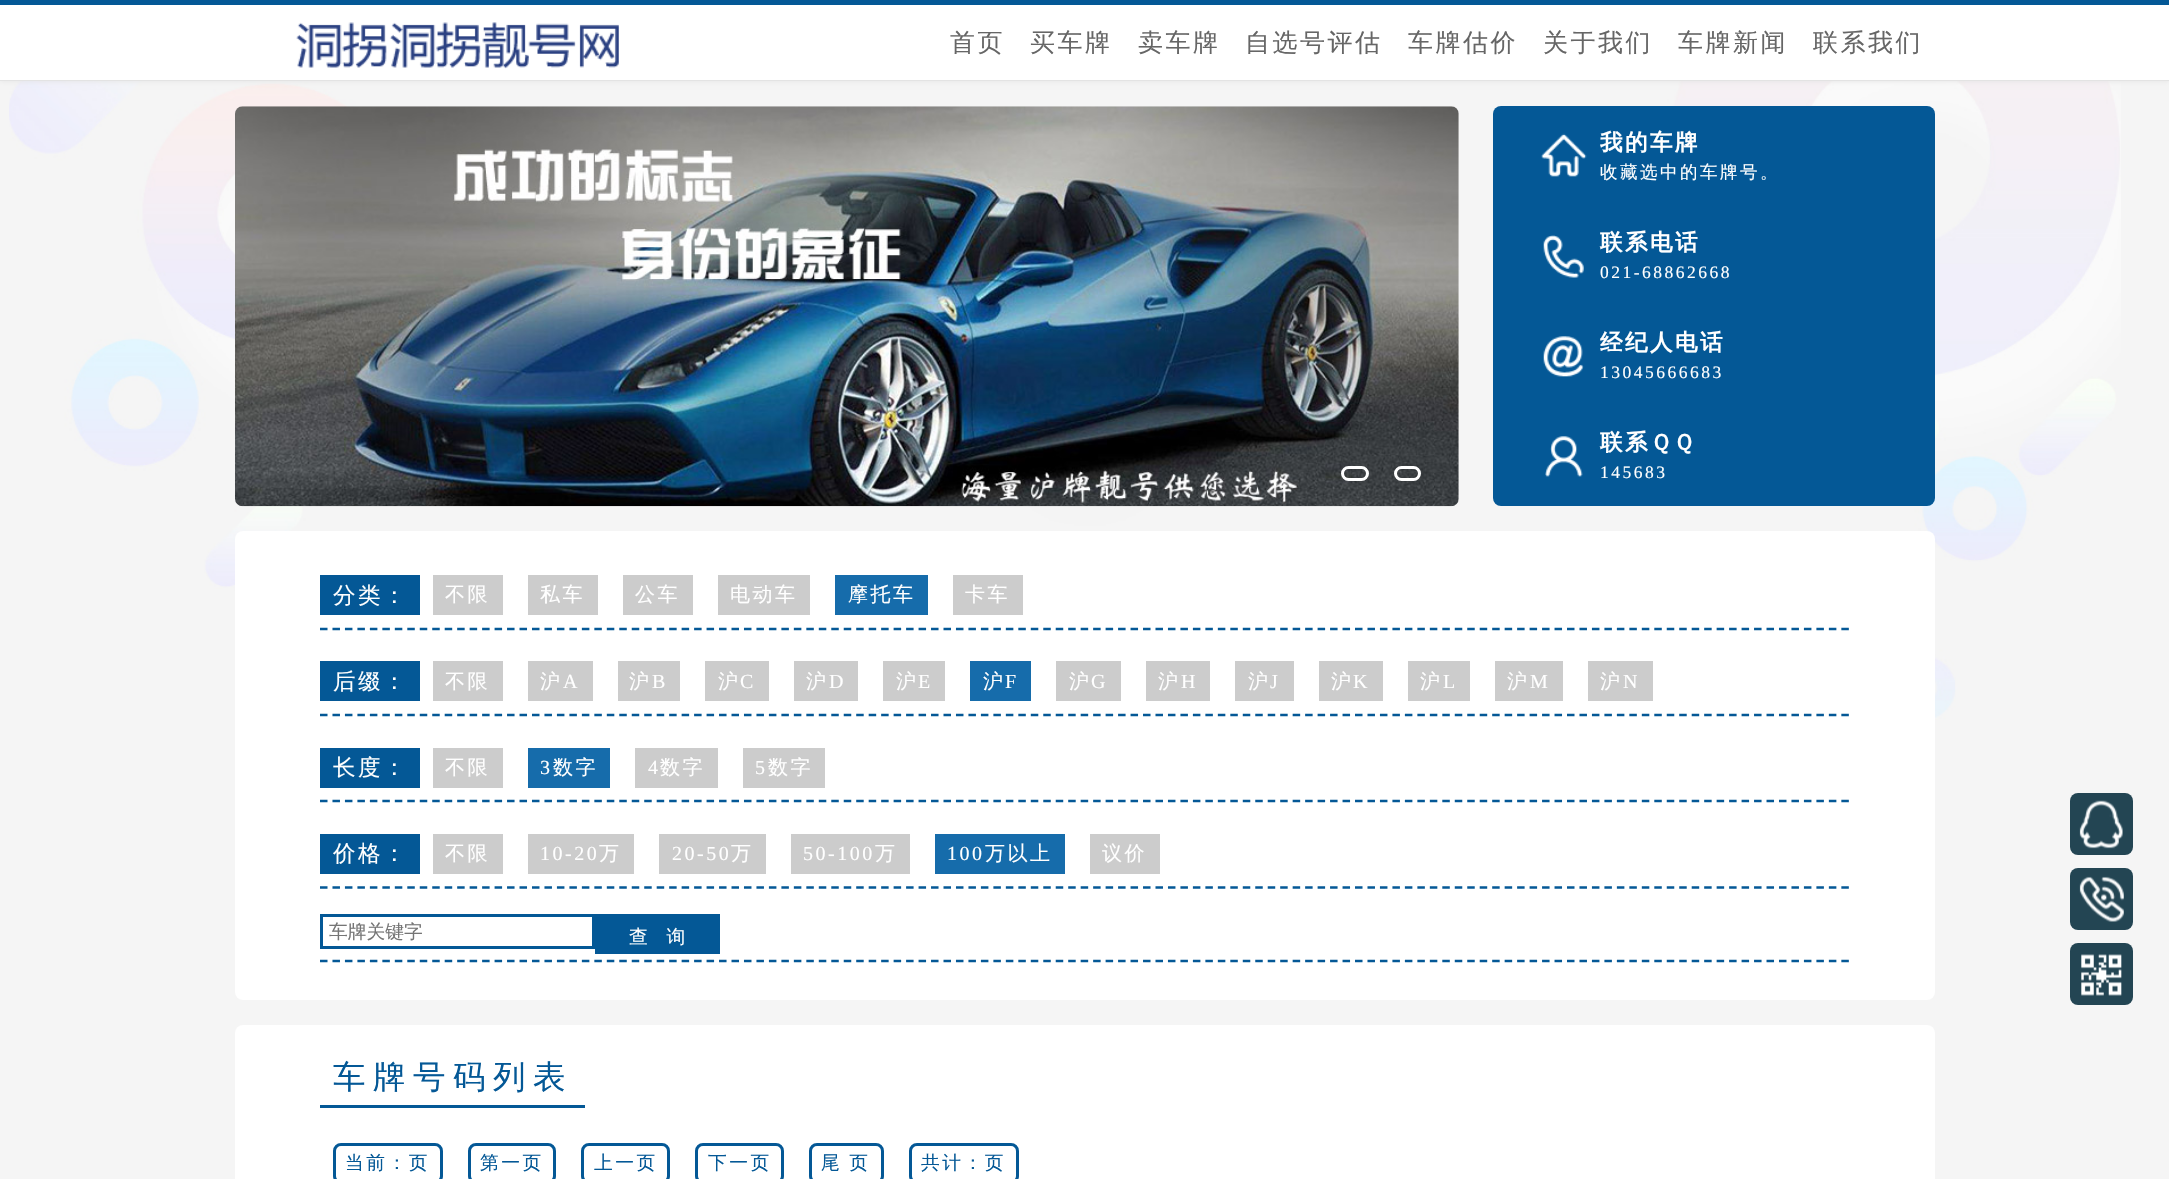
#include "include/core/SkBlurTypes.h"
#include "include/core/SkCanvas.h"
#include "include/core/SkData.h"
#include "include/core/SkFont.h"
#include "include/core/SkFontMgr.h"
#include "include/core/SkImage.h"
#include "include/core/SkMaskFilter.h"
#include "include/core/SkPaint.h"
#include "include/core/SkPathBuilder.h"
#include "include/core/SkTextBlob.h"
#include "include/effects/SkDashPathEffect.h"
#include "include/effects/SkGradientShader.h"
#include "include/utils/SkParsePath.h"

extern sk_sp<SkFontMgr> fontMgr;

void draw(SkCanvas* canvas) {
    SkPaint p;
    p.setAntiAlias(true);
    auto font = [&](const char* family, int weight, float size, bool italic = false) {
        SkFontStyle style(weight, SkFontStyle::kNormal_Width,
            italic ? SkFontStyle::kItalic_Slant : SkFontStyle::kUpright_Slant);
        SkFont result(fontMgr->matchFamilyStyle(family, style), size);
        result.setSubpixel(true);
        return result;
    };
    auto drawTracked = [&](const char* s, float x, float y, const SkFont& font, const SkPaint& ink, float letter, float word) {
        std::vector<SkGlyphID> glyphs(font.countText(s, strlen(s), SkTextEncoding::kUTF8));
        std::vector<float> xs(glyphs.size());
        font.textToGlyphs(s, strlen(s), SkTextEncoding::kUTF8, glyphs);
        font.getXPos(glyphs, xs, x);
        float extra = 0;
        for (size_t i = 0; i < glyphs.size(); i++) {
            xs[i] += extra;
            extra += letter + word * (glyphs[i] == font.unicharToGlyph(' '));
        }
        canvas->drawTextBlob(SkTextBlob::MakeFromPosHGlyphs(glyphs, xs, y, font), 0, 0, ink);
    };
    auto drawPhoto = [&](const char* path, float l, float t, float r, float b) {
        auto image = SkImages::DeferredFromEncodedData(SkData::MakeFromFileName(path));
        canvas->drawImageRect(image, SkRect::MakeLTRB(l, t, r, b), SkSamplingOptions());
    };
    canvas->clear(0xFFF5F5F5);
    drawPhoto("media/1.png", 9, 81, 2121, 720);
    p.setColor(0xFFE3E3E3);
    p.setMaskFilter(SkMaskFilter::MakeBlur(kNormal_SkBlurStyle, 3));
    canvas->drawRect(SkRect::MakeLTRB(0, 0, 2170, 81), p);
    p.setMaskFilter(nullptr);
    {
        const struct { float l, t, r, b; SkColor color; } items[] = {
            {0, 5, 2169, 80, 0xFFFFFFFF},
            {0, 0, 2169, 5, 0xFF045896},
            {0, 80, 2169, 81, 0xFFE3E3E3},
        };
        for (auto [l, t, r, b, color] : items) {
            p.setColor(color);
            canvas->drawRect(SkRect::MakeLTRB(l, t, r, b), p);
        }
    }
    drawPhoto("media/2.png", 296, 22, 619, 69);
    auto font1 = font("WenQuanYi Zen Hei", 500, 25);
    p.setColor(0xFF666666);
    {
        const struct { const char* s; float x, y; } items[] = {
            {"首页", 950, 51},
            {"买车牌", 1030, 51},
            {"卖车牌", 1138, 51},
            {"自选号评估", 1245, 51},
            {"车牌估价", 1408, 51},
            {"关于我们", 1543, 51},
            {"车牌新闻", 1678, 51},
            {"联系我们", 1813, 51},
        };
        for (auto [s, x, y] : items) {
            drawTracked(s, x, y, font1, p, 2.5f, 0);
        }
    }
    drawPhoto("media/3.png", 235, 106, 1459, 507);
    p.setStyle(SkPaint::kStroke_Style);
    p.setStrokeWidth(3);
    p.setColor(0xFFFFFFFF);
    canvas->drawRoundRect(SkRect::MakeLTRB(1342.5f, 467.5f, 1367.5f, 479.5f), 6, 6, p);
    canvas->drawRoundRect(SkRect::MakeLTRB(1395.5f, 467.5f, 1419.5f, 479.5f), 6, 6, p);
    p.setStyle(SkPaint::kFill_Style);
    p.setColor(0xFF045896);
    canvas->drawRoundRect(SkRect::MakeLTRB(1493, 106, 1935, 506), 8, 8, p);
    drawPhoto("media/4.png", 1541, 133, 1587, 177);
    auto font2 = font("WenQuanYi Zen Hei", 700, 22.5f);
    p.setColor(0xFFFFFFFF);
    drawTracked("我的车牌", 1600, 150, font2, p, 2.5f, 0);
    auto font3 = font("WenQuanYi Zen Hei", 500, 17.5f);
    drawTracked("收藏选中的车牌号。", 1600, 178, font3, p, 2.5f, 0);
    drawPhoto("media/5.png", 1543, 235, 1584, 278);
    drawTracked("联系电话", 1600, 250, font2, p, 2.5f, 0);
    auto font4 = font("Liberation Serif", 400, 17.5f);
    drawTracked("021-68862668", 1600, 278, font4, p, 2.5f, 0);
    drawPhoto("media/6.png", 1543, 336, 1584, 377);
    drawTracked("经纪人电话", 1600, 350, font2, p, 2.5f, 0);
    drawTracked("13045666683", 1600, 378, font4, p, 2.5f, 0);
    drawPhoto("media/7.png", 1545, 436, 1583, 477);
    drawTracked("联系ＱＱ", 1600, 450, font2, p, 2.5f, 0);
    drawTracked("145683", 1600, 478, font4, p, 2.5f, 0);
    canvas->drawRoundRect(SkRect::MakeLTRB(235, 531, 1935, 1000), 8, 8, p);
    p.setStyle(SkPaint::kStroke_Style);
    p.setStrokeWidth(2.5f);
    p.setColor(0xFF045896);
    p.setPathEffect(SkDashPathEffect::Make({{7.5f, 4.97f}}, 0));
    canvas->drawPath(SkPathBuilder().moveTo(320, 629).lineTo(1850, 629).detach(), p);
    p.setPathEffect(nullptr);
    p.setStyle(SkPaint::kFill_Style);
    canvas->drawRect(SkRect::MakeLTRB(320, 575, 420, 615), p);
    auto font5 = font("WenQuanYi Zen Hei", 500, 22.5f);
    p.setColor(0xFFFFFFFF);
    drawTracked("分类：", 333, 603, font5, p, 2.5f, 0);
    p.setColor(0xFFCCCCCC);
    canvas->drawRect(SkRect::MakeLTRB(433, 575, 503, 615), p);
    auto font6 = font("WenQuanYi Zen Hei", 500, 20);
    p.setColor(0xFFFFFFFF);
    drawTracked("不限", 445, 601, font6, p, 2.5f, 0);
    p.setColor(0xFFCCCCCC);
    canvas->drawRect(SkRect::MakeLTRB(528, 575, 598, 615), p);
    p.setColor(0xFFFFFFFF);
    drawTracked("私车", 540, 601, font6, p, 2.5f, 0);
    p.setColor(0xFFCCCCCC);
    canvas->drawRect(SkRect::MakeLTRB(623, 575, 693, 615), p);
    p.setColor(0xFFFFFFFF);
    drawTracked("公车", 635, 601, font6, p, 2.5f, 0);
    p.setColor(0xFFCCCCCC);
    canvas->drawRect(SkRect::MakeLTRB(718, 575, 810, 615), p);
    p.setColor(0xFFFFFFFF);
    drawTracked("电动车", 730, 601, font6, p, 2.5f, 0);
    p.setColor(0xFF166CAB);
    canvas->drawRect(SkRect::MakeLTRB(835, 575, 928, 615), p);
    p.setColor(0xFFFFFFFF);
    drawTracked("摩托车", 848, 601, font6, p, 2.5f, 0);
    p.setColor(0xFFCCCCCC);
    canvas->drawRect(SkRect::MakeLTRB(953, 575, 1023, 615), p);
    p.setColor(0xFFFFFFFF);
    drawTracked("卡车", 965, 601, font6, p, 2.5f, 0);
    p.setStyle(SkPaint::kStroke_Style);
    p.setColor(0xFF045896);
    p.setPathEffect(SkDashPathEffect::Make({{7.5f, 4.97f}}, 0));
    canvas->drawPath(SkPathBuilder().moveTo(320, 715).lineTo(1850, 715).detach(), p);
    p.setPathEffect(nullptr);
    p.setStyle(SkPaint::kFill_Style);
    canvas->drawRect(SkRect::MakeLTRB(320, 661, 420, 701), p);
    p.setColor(0xFFFFFFFF);
    drawTracked("后缀：", 333, 689, font5, p, 2.5f, 0);
    p.setColor(0xFFCCCCCC);
    canvas->drawRect(SkRect::MakeLTRB(433, 661, 503, 701), p);
    p.setColor(0xFFFFFFFF);
    drawTracked("不限", 445, 688, font6, p, 2.5f, 0);
    p.setColor(0xFFCCCCCC);
    canvas->drawRect(SkRect::MakeLTRB(528, 661, 593, 701), p);
    p.setColor(0xFFFFFFFF);
    drawTracked("沪", 540, 688, font6, p, 2.5f, 0);
    auto font7 = font("Liberation Serif", 400, 20);
    drawTracked("A", 563, 688, font7, p, 2.5f, 0);
    p.setColor(0xFFCCCCCC);
    canvas->drawRect(SkRect::MakeLTRB(618, 661, 680, 701), p);
    p.setColor(0xFFFFFFFF);
    drawTracked("沪", 629, 688, font6, p, 2.5f, 0);
    drawTracked("B", 652, 688, font7, p, 2.5f, 0);
    p.setColor(0xFFCCCCCC);
    canvas->drawRect(SkRect::MakeLTRB(705, 661, 769, 701), p);
    p.setColor(0xFFFFFFFF);
    drawTracked("沪", 718, 688, font6, p, 2.5f, 0);
    drawTracked("C", 740, 688, font7, p, 2.5f, 0);
    p.setColor(0xFFCCCCCC);
    canvas->drawRect(SkRect::MakeLTRB(794, 661, 858, 701), p);
    p.setColor(0xFFFFFFFF);
    drawTracked("沪", 806, 688, font6, p, 2.5f, 0);
    drawTracked("D", 829, 688, font7, p, 2.5f, 0);
    p.setColor(0xFFCCCCCC);
    canvas->drawRect(SkRect::MakeLTRB(883, 661, 945, 701), p);
    p.setColor(0xFFFFFFFF);
    drawTracked("沪", 896, 688, font6, p, 2.5f, 0);
    drawTracked("E", 918, 688, font7, p, 2.5f, 0);
    p.setColor(0xFF166CAB);
    canvas->drawRect(SkRect::MakeLTRB(970, 661, 1031, 701), p);
    p.setColor(0xFFFFFFFF);
    drawTracked("沪", 983, 688, font6, p, 2.5f, 0);
    drawTracked("F", 1005, 688, font7, p, 2.5f, 0);
    p.setColor(0xFFCCCCCC);
    canvas->drawRect(SkRect::MakeLTRB(1056, 661, 1121, 701), p);
    p.setColor(0xFFFFFFFF);
    drawTracked("沪", 1069, 688, font6, p, 2.5f, 0);
    drawTracked("G", 1091, 688, font7, p, 2.5f, 0);
    p.setColor(0xFFCCCCCC);
    canvas->drawRect(SkRect::MakeLTRB(1146, 661, 1210, 701), p);
    p.setColor(0xFFFFFFFF);
    drawTracked("沪", 1158, 688, font6, p, 2.5f, 0);
    drawTracked("H", 1181, 688, font7, p, 2.5f, 0);
    p.setColor(0xFFCCCCCC);
    canvas->drawRect(SkRect::MakeLTRB(1235, 661, 1294, 701), p);
    p.setColor(0xFFFFFFFF);
    drawTracked("沪", 1248, 688, font6, p, 2.5f, 0);
    drawTracked("J", 1270, 688, font7, p, 2.5f, 0);
    p.setColor(0xFFCCCCCC);
    canvas->drawRect(SkRect::MakeLTRB(1319, 661, 1383, 701), p);
    p.setColor(0xFFFFFFFF);
    drawTracked("沪", 1331, 688, font6, p, 2.5f, 0);
    drawTracked("K", 1353, 688, font7, p, 2.5f, 0);
    p.setColor(0xFFCCCCCC);
    canvas->drawRect(SkRect::MakeLTRB(1408, 661, 1470, 701), p);
    p.setColor(0xFFFFFFFF);
    drawTracked("沪", 1420, 688, font6, p, 2.5f, 0);
    drawTracked("L", 1443, 688, font7, p, 2.5f, 0);
    p.setColor(0xFFCCCCCC);
    canvas->drawRect(SkRect::MakeLTRB(1495, 661, 1563, 701), p);
    p.setColor(0xFFFFFFFF);
    drawTracked("沪", 1507, 688, font6, p, 2.5f, 0);
    drawTracked("M", 1530, 688, font7, p, 2.5f, 0);
    p.setColor(0xFFCCCCCC);
    canvas->drawRect(SkRect::MakeLTRB(1588, 661, 1653, 701), p);
    p.setColor(0xFFFFFFFF);
    drawTracked("沪", 1600, 688, font6, p, 2.5f, 0);
    drawTracked("N", 1623, 688, font7, p, 2.5f, 0);
    p.setStyle(SkPaint::kStroke_Style);
    p.setColor(0xFF045896);
    p.setPathEffect(SkDashPathEffect::Make({{7.5f, 4.97f}}, 0));
    canvas->drawPath(SkPathBuilder().moveTo(320, 801).lineTo(1850, 801).detach(), p);
    p.setPathEffect(nullptr);
    p.setStyle(SkPaint::kFill_Style);
    canvas->drawRect(SkRect::MakeLTRB(320, 748, 420, 788), p);
    p.setColor(0xFFFFFFFF);
    drawTracked("长度：", 333, 775, font5, p, 2.5f, 0);
    p.setColor(0xFFCCCCCC);
    canvas->drawRect(SkRect::MakeLTRB(433, 748, 503, 788), p);
    p.setColor(0xFFFFFFFF);
    drawTracked("不限", 445, 774, font6, p, 2.5f, 0);
    p.setColor(0xFF166CAB);
    canvas->drawRect(SkRect::MakeLTRB(528, 748, 610, 788), p);
    p.setColor(0xFFFFFFFF);
    drawTracked("3", 540, 774, font7, p, 2.5f, 0);
    drawTracked("数字", 553, 774, font6, p, 2.5f, 0);
    p.setColor(0xFFCCCCCC);
    canvas->drawRect(SkRect::MakeLTRB(635, 748, 718, 788), p);
    p.setColor(0xFFFFFFFF);
    drawTracked("4", 648, 774, font7, p, 2.5f, 0);
    drawTracked("数字", 660, 774, font6, p, 2.5f, 0);
    p.setColor(0xFFCCCCCC);
    canvas->drawRect(SkRect::MakeLTRB(743, 748, 825, 788), p);
    p.setColor(0xFFFFFFFF);
    drawTracked("5", 755, 774, font7, p, 2.5f, 0);
    drawTracked("数字", 768, 774, font6, p, 2.5f, 0);
    p.setStyle(SkPaint::kStroke_Style);
    p.setColor(0xFF045896);
    p.setPathEffect(SkDashPathEffect::Make({{7.5f, 4.97f}}, 0));
    canvas->drawPath(SkPathBuilder().moveTo(320, 887.5f).lineTo(1850, 887.5f).detach(), p);
    p.setPathEffect(nullptr);
    p.setStyle(SkPaint::kFill_Style);
    canvas->drawRect(SkRect::MakeLTRB(320, 834, 420, 874), p);
    p.setColor(0xFFFFFFFF);
    drawTracked("价格：", 333, 861, font5, p, 2.5f, 0);
    p.setColor(0xFFCCCCCC);
    canvas->drawRect(SkRect::MakeLTRB(433, 834, 503, 874), p);
    p.setColor(0xFFFFFFFF);
    drawTracked("不限", 445, 860, font6, p, 2.5f, 0);
    p.setColor(0xFFCCCCCC);
    canvas->drawRect(SkRect::MakeLTRB(528, 834, 634, 874), p);
    p.setColor(0xFFFFFFFF);
    drawTracked("10-20", 540, 860, font7, p, 2.5f, 0);
    drawTracked("万", 599, 860, font6, p, 2.5f, 0);
    p.setColor(0xFFCCCCCC);
    canvas->drawRect(SkRect::MakeLTRB(659, 834, 766, 874), p);
    p.setColor(0xFFFFFFFF);
    drawTracked("20-50", 672, 860, font7, p, 2.5f, 0);
    drawTracked("万", 731, 860, font6, p, 2.5f, 0);
    p.setColor(0xFFCCCCCC);
    canvas->drawRect(SkRect::MakeLTRB(791, 834, 910, 874), p);
    p.setColor(0xFFFFFFFF);
    drawTracked("50-100", 803, 860, font7, p, 2.5f, 0);
    drawTracked("万", 875, 860, font6, p, 2.5f, 0);
    p.setColor(0xFF166CAB);
    canvas->drawRect(SkRect::MakeLTRB(935, 834, 1065, 874), p);
    p.setColor(0xFFFFFFFF);
    drawTracked("100", 947, 860, font7, p, 2.5f, 0);
    drawTracked("万以上", 985, 860, font6, p, 2.5f, 0);
    p.setColor(0xFFCCCCCC);
    canvas->drawRect(SkRect::MakeLTRB(1090, 834, 1160, 874), p);
    p.setColor(0xFFFFFFFF);
    drawTracked("议价", 1102, 860, font6, p, 2.5f, 0);
    p.setStyle(SkPaint::kStroke_Style);
    p.setColor(0xFF045896);
    p.setPathEffect(SkDashPathEffect::Make({{7.5f, 4.97f}}, 0));
    canvas->drawPath(SkPathBuilder().moveTo(320, 961).lineTo(1850, 961).detach(), p);
    p.setPathEffect(nullptr);
    p.setStrokeWidth(3);
    canvas->drawRect(SkRect::MakeLTRB(321.5f, 915.5f, 593.5f, 947.5f), p);
    auto font8 = font("WenQuanYi Zen Hei", 500, 18.75f);
    p.setStyle(SkPaint::kFill_Style);
    p.setColor(0xFF757575);
    canvas->drawString("车牌关键字", 329, 938, font8, p);
    p.setColor(0xFF045896);
    canvas->drawRect(SkRect::MakeLTRB(595, 914, 720, 954), p);
    p.setColor(0xFFFFFFFF);
    canvas->drawString("查　询", 629, 943, font8, p);
    p.setColor(0xFF234553);
    canvas->drawRoundRect(SkRect::MakeLTRB(2070, 793, 2133, 855), 8, 8, p);
    drawPhoto("media/8.png", 2079, 800, 2123, 849);
    canvas->drawRoundRect(SkRect::MakeLTRB(2070, 868, 2133, 930), 8, 8, p);
    drawPhoto("media/9.png", 2079, 876, 2124, 922);
    canvas->drawRoundRect(SkRect::MakeLTRB(2070, 943, 2133, 1005), 8, 8, p);
    drawPhoto("media/10.png", 2081, 954, 2122, 996);
    p.setColor(0xFFFFFFFF);
    canvas->drawRoundRect(SkRect::MakeLTRB(235, 1025, 1935, 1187), 8, 8, p);
    p.setColor(0xFF045896);
    canvas->drawRect(SkRect::MakeLTRB(320, 1105, 585, 1108), p);
    auto font9 = font("WenQuanYi Zen Hei", 500, 32.5f);
    drawTracked("车牌号码列表", 333, 1088, font9, p, 7.5f, 0);
    p.setStyle(SkPaint::kStroke_Style);
    canvas->drawRoundRect(SkRect::MakeLTRB(334.5f, 1144.5f, 441.5f, 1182.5f), 6.5f, 6.5f, p);
    p.setStyle(SkPaint::kFill_Style);
    drawTracked("当前：页", 345, 1169, font8, p, 2.5f, 0);
    p.setStyle(SkPaint::kStroke_Style);
    canvas->drawRoundRect(SkRect::MakeLTRB(469.5f, 1144.5f, 554.5f, 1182.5f), 6.5f, 6.5f, p);
    p.setStyle(SkPaint::kFill_Style);
    drawTracked("第一页", 480, 1169, font8, p, 2.5f, 0);
    p.setStyle(SkPaint::kStroke_Style);
    canvas->drawRoundRect(SkRect::MakeLTRB(582.5f, 1144.5f, 668.5f, 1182.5f), 6.5f, 6.5f, p);
    p.setStyle(SkPaint::kFill_Style);
    drawTracked("上一页", 594, 1169, font8, p, 2.5f, 0);
    p.setStyle(SkPaint::kStroke_Style);
    canvas->drawRoundRect(SkRect::MakeLTRB(696.5f, 1144.5f, 782.5f, 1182.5f), 6.5f, 6.5f, p);
    p.setStyle(SkPaint::kFill_Style);
    drawTracked("下一页", 708, 1169, font8, p, 2.5f, 0);
    p.setStyle(SkPaint::kStroke_Style);
    canvas->drawRoundRect(SkRect::MakeLTRB(810.5f, 1144.5f, 882.5f, 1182.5f), 6.5f, 6.5f, p);
    p.setStyle(SkPaint::kFill_Style);
    drawTracked("尾 页", 821, 1169, font8, p, 2.5f, -1);
    p.setStyle(SkPaint::kStroke_Style);
    canvas->drawRoundRect(SkRect::MakeLTRB(910.5f, 1144.5f, 1017.5f, 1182.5f), 6.5f, 6.5f, p);
    p.setStyle(SkPaint::kFill_Style);
    drawTracked("共计：页", 921, 1169, font8, p, 2.5f, 0);
}
